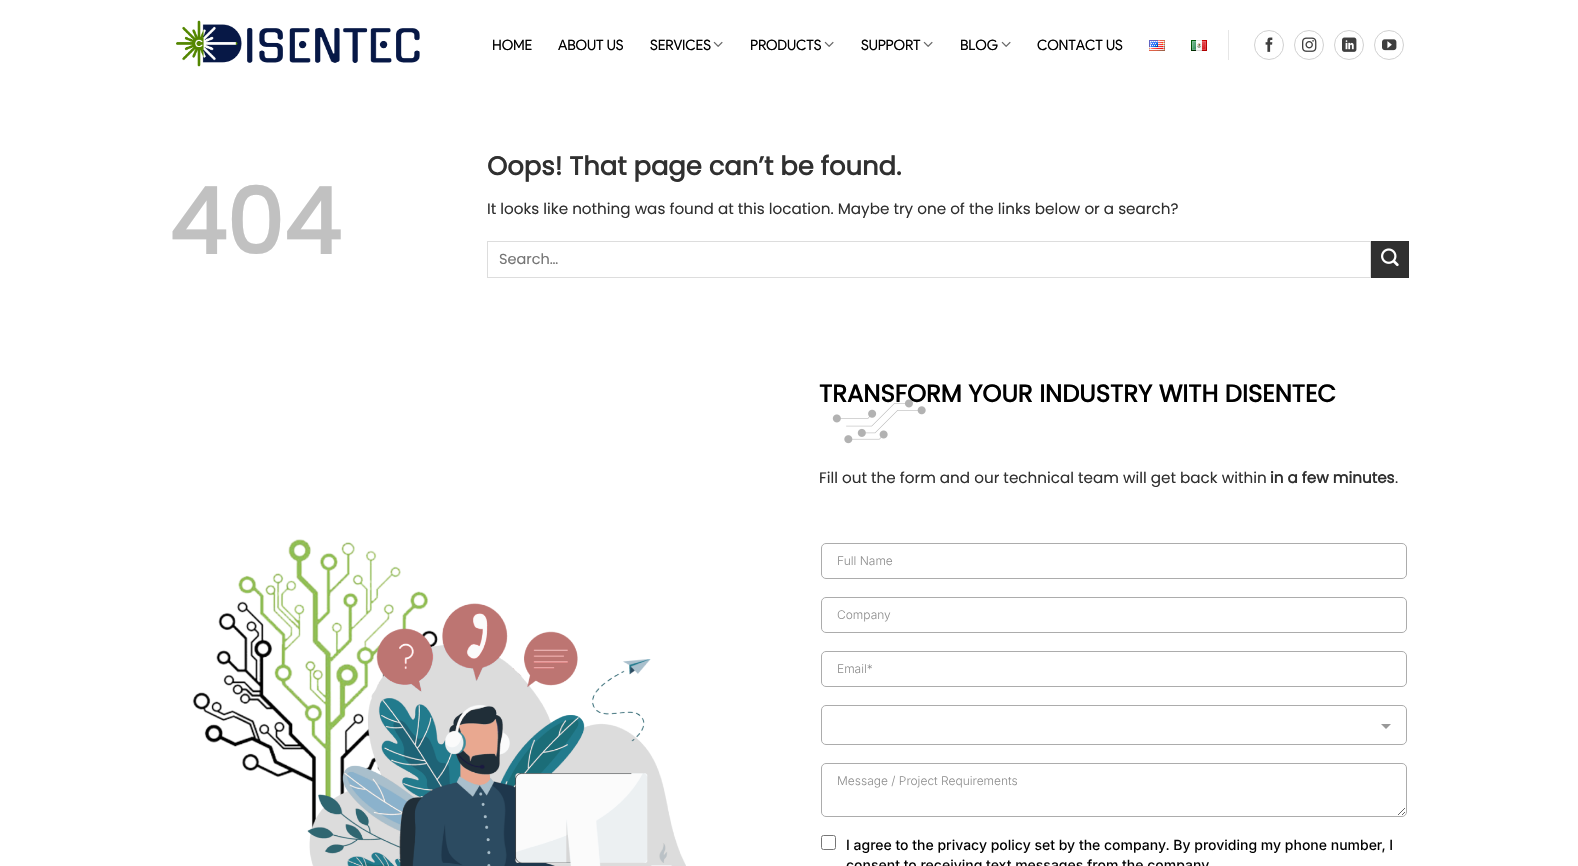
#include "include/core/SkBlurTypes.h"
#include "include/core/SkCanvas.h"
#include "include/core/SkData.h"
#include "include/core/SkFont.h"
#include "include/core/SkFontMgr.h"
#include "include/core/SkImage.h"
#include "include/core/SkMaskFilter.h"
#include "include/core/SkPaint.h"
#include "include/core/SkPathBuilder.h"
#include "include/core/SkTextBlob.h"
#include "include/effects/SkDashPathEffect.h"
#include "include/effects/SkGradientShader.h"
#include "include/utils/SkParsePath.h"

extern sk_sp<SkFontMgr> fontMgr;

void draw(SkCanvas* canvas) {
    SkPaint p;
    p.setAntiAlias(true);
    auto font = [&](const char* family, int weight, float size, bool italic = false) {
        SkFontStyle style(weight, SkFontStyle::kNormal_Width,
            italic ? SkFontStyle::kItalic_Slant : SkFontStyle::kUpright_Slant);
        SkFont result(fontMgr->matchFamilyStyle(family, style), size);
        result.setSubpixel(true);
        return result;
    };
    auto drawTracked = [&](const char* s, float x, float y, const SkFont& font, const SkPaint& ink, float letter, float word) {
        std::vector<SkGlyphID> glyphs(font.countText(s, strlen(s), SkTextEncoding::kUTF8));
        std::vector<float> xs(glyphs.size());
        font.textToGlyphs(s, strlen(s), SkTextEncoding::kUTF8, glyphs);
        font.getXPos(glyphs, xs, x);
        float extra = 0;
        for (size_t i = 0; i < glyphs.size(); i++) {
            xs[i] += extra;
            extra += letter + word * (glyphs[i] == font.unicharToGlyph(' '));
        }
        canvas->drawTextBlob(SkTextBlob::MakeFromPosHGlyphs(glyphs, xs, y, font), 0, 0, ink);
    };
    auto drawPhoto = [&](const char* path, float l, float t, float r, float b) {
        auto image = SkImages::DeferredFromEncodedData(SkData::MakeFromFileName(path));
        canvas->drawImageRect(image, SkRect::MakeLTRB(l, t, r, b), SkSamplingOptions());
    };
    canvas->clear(0xFFFFFFFF);
    drawPhoto("media/1.png", 176, 20, 420, 67);
    auto font1 = font("Product Sans", 700, 13.75f);
    p.setColor(0xFF000000);
    {
        const struct { const char* s; float x, y; } items[] = {
            {"HOME", 492, 50},
            {"ABOUT US", 558, 50},
            {"SERVICES", 650, 50},
        };
        for (auto [s, x, y] : items) {
            drawTracked(s, x, y, font1, p, 0.25f, 0);
        }
    }
    drawPhoto("media/2.png", 713, 41, 723, 47);
    drawTracked("PRODUCTS", 750, 50, font1, p, 0.25f, 0);
    drawPhoto("media/2.png", 824, 41, 834, 47);
    drawTracked("SUPPORT", 861, 50, font1, p, 0.25f, 0);
    drawPhoto("media/2.png", 923, 41, 933, 47);
    drawTracked("BLOG", 960, 50, font1, p, 0.25f, 0);
    drawPhoto("media/2.png", 1001, 41, 1011, 47);
    drawTracked("CONTACT US", 1037, 50, font1, p, 0.25f, 0);
    drawPhoto("media/3.png", 1149, 40, 1165, 51);
    drawPhoto("media/4.png", 1191, 40, 1207, 51);
    p.setColor(0xFFE6E6E6);
    canvas->drawRect(SkRect::MakeLTRB(1228, 30, 1229, 60), p);
    p.setStyle(SkPaint::kStroke_Style);
    p.setStrokeWidth(1);
    p.setColor(0xFFD1D1D1);
    canvas->drawCircle(1269, 45, 14.5f, p);
    drawPhoto("media/5.png", 1265, 37, 1273, 52);
    canvas->drawCircle(1309, 45, 14.5f, p);
    drawPhoto("media/6.png", 1302, 37, 1317, 52);
    canvas->drawCircle(1349, 45, 14.5f, p);
    drawPhoto("media/7.png", 1342, 37, 1357, 52);
    canvas->drawCircle(1389, 45, 14.5f, p);
    drawPhoto("media/8.png", 1382, 39, 1397, 51);
    auto font2 = font("Poppins", 700, 91);
    p.setStyle(SkPaint::kFill_Style);
    p.setColor(0xFFC1C1C1);
    canvas->drawString("404", 169, 254, font2, p);
    auto font3 = font("Poppins", 700, 25.8f);
    p.setColor(0xFF303030);
    canvas->drawString("Oops! That page can’t be found.", 487, 175, font3, p);
    auto font4 = font("Poppins", 400, 15.2f);
    canvas->drawString("It looks like nothing was found at this location. Maybe try one of the links below or a search?", 487, 214, font4, p);
    p.setStyle(SkPaint::kStroke_Style);
    p.setColor(0xFFDDDDDD);
    canvas->drawRect(SkRect::MakeLTRB(487.5f, 241.5f, 1370.5f, 277.5f), p);
    auto font5 = font("Poppins", 400, 14.5f);
    p.setStyle(SkPaint::kFill_Style);
    p.setColor(0xFF757575);
    canvas->drawString("Search…", 499, 264, font5, p);
    p.setColor(0xFF303030);
    canvas->drawRect(SkRect::MakeLTRB(1371.5f, 241.5f, 1408.5f, 277.5f), p);
    p.setStyle(SkPaint::kStroke_Style);
    p.setColor(0xFF2E2E2E);
    canvas->drawRect(SkRect::MakeLTRB(1371.5f, 241.5f, 1408.5f, 277.5f), p);
    drawPhoto("media/9.png", 1381, 248, 1399, 267);
    auto font6 = font("Poppins", 700, 24.3f);
    p.setStyle(SkPaint::kFill_Style);
    p.setColor(0xFF000000);
    canvas->drawString("TRANSFORM YOUR INDUSTRY WITH DISENTEC", 819, 402, font6, p);
    drawPhoto("media/10.png", 832, 399, 926, 444);
    p.setColor(0xFF303030);
    canvas->drawString("Fill out the form and our technical team will get back within", 819, 483, font4, p);
    auto font7 = font("Poppins", 700, 15.2f);
    canvas->drawString("in a few minutes", 1270, 483, font7, p);
    canvas->drawString(".", 1395, 483, font4, p);
    drawPhoto("media/11.png", 821, 543, 1407, 866);
    drawPhoto("media/12.png", 192, 539, 686, 866);
}
